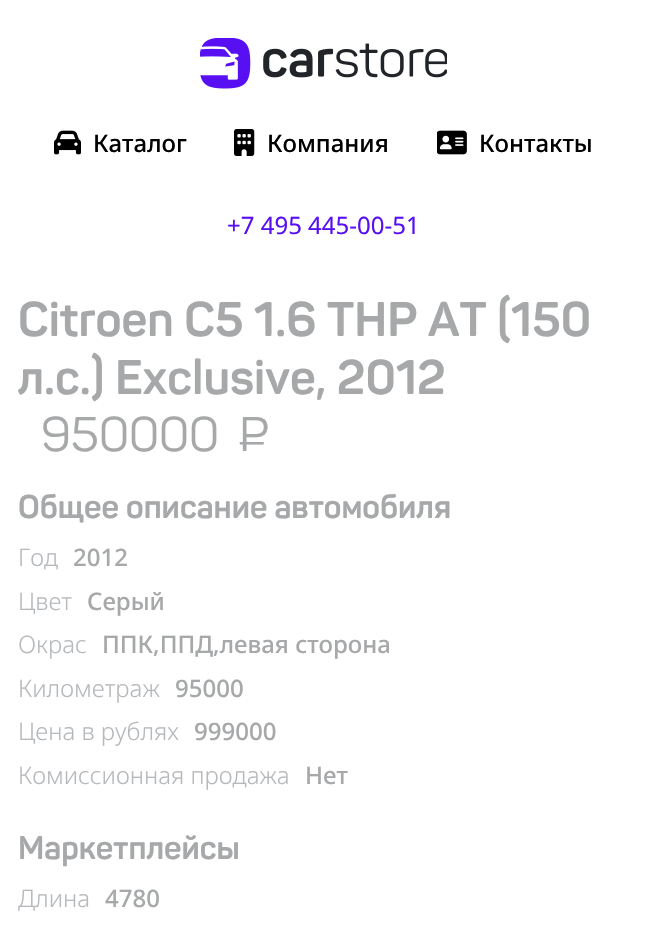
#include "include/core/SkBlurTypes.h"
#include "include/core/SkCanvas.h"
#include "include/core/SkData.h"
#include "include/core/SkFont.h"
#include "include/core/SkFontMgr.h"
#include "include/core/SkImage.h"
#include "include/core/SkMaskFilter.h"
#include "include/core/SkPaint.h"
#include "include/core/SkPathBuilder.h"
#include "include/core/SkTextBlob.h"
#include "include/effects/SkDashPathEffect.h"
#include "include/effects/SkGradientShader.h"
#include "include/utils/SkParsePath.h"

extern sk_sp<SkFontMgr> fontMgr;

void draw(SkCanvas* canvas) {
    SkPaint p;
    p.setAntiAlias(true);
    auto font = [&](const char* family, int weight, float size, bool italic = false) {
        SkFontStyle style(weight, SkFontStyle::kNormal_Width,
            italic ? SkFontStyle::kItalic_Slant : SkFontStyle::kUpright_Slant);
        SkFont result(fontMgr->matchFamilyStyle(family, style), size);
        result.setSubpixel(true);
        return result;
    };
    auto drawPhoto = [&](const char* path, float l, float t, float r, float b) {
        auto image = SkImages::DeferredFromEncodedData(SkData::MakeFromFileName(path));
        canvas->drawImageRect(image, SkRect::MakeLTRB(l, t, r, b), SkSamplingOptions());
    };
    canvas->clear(0xFFFFFFFF);
    drawPhoto("media/1.png", 200, 38, 447, 89);
    drawPhoto("media/2.png", 54, 130, 81, 155);
    auto font1 = font("Noto Sans", 500, 24);
    p.setColor(0xFF000000);
    canvas->drawString("Каталог", 93, 152, font1, p);
    drawPhoto("media/3.png", 234, 129, 255, 156);
    canvas->drawString("Компания", 267, 152, font1, p);
    drawPhoto("media/4.png", 437, 130, 467, 155);
    canvas->drawString("Контакты", 479, 152, font1, p);
    auto font2 = font("Noto Sans", 400, 24);
    p.setColor(0xFF5810F2);
    canvas->drawString("+7 495 445-00-51", 227, 234, font2, p);
    auto font3 = font("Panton", 700, 48);
    p.setColor(0xFFA6A8A9);
    canvas->drawString("Citroen C5 1.6 THP AT (150", 18, 336, font3, p);
    canvas->drawString("л.с.) Exclusive, 2012", 18, 394, font3, p);
    auto font4 = font("Panton", 400, 48);
    canvas->drawString("950 000", 41, 451, font4, p);
    canvas->drawString("₽", 238, 451, font4, p);
    auto font5 = font("Panton", 700, 32.5f);
    canvas->drawString("Общее описание автомобиля", 18, 518, font5, p);
    auto font6 = font("Noto Sans", 300, 24);
    p.setColor(0xFFB6B9BC);
    canvas->drawString("Год", 18, 566, font6, p);
    p.setColor(0xFFA6A8A9);
    canvas->drawString("2012", 73, 566, font1, p);
    p.setColor(0xFFB6B9BC);
    canvas->drawString("Цвет", 18, 610, font6, p);
    p.setColor(0xFFA6A8A9);
    canvas->drawString("Серый", 87, 610, font1, p);
    p.setColor(0xFFB6B9BC);
    canvas->drawString("Окрас", 18, 653, font6, p);
    p.setColor(0xFFA6A8A9);
    canvas->drawString("ППК,ППД,левая сторона", 102, 653, font1, p);
    p.setColor(0xFFB6B9BC);
    canvas->drawString("Километраж", 18, 697, font6, p);
    p.setColor(0xFFA6A8A9);
    canvas->drawString("95000", 175, 697, font1, p);
    p.setColor(0xFFB6B9BC);
    canvas->drawString("Цена в рублях", 18, 740, font6, p);
    p.setColor(0xFFA6A8A9);
    canvas->drawString("999000", 194, 740, font1, p);
    p.setColor(0xFFB6B9BC);
    canvas->drawString("Комиссионная продажа", 18, 784, font6, p);
    p.setColor(0xFFA6A8A9);
    canvas->drawString("Нет", 305, 784, font1, p);
    canvas->drawString("Маркетплейсы", 18, 859, font5, p);
    p.setColor(0xFFB6B9BC);
    canvas->drawString("Длина", 18, 907, font6, p);
    p.setColor(0xFFA6A8A9);
    canvas->drawString("4780", 105, 907, font1, p);
}
